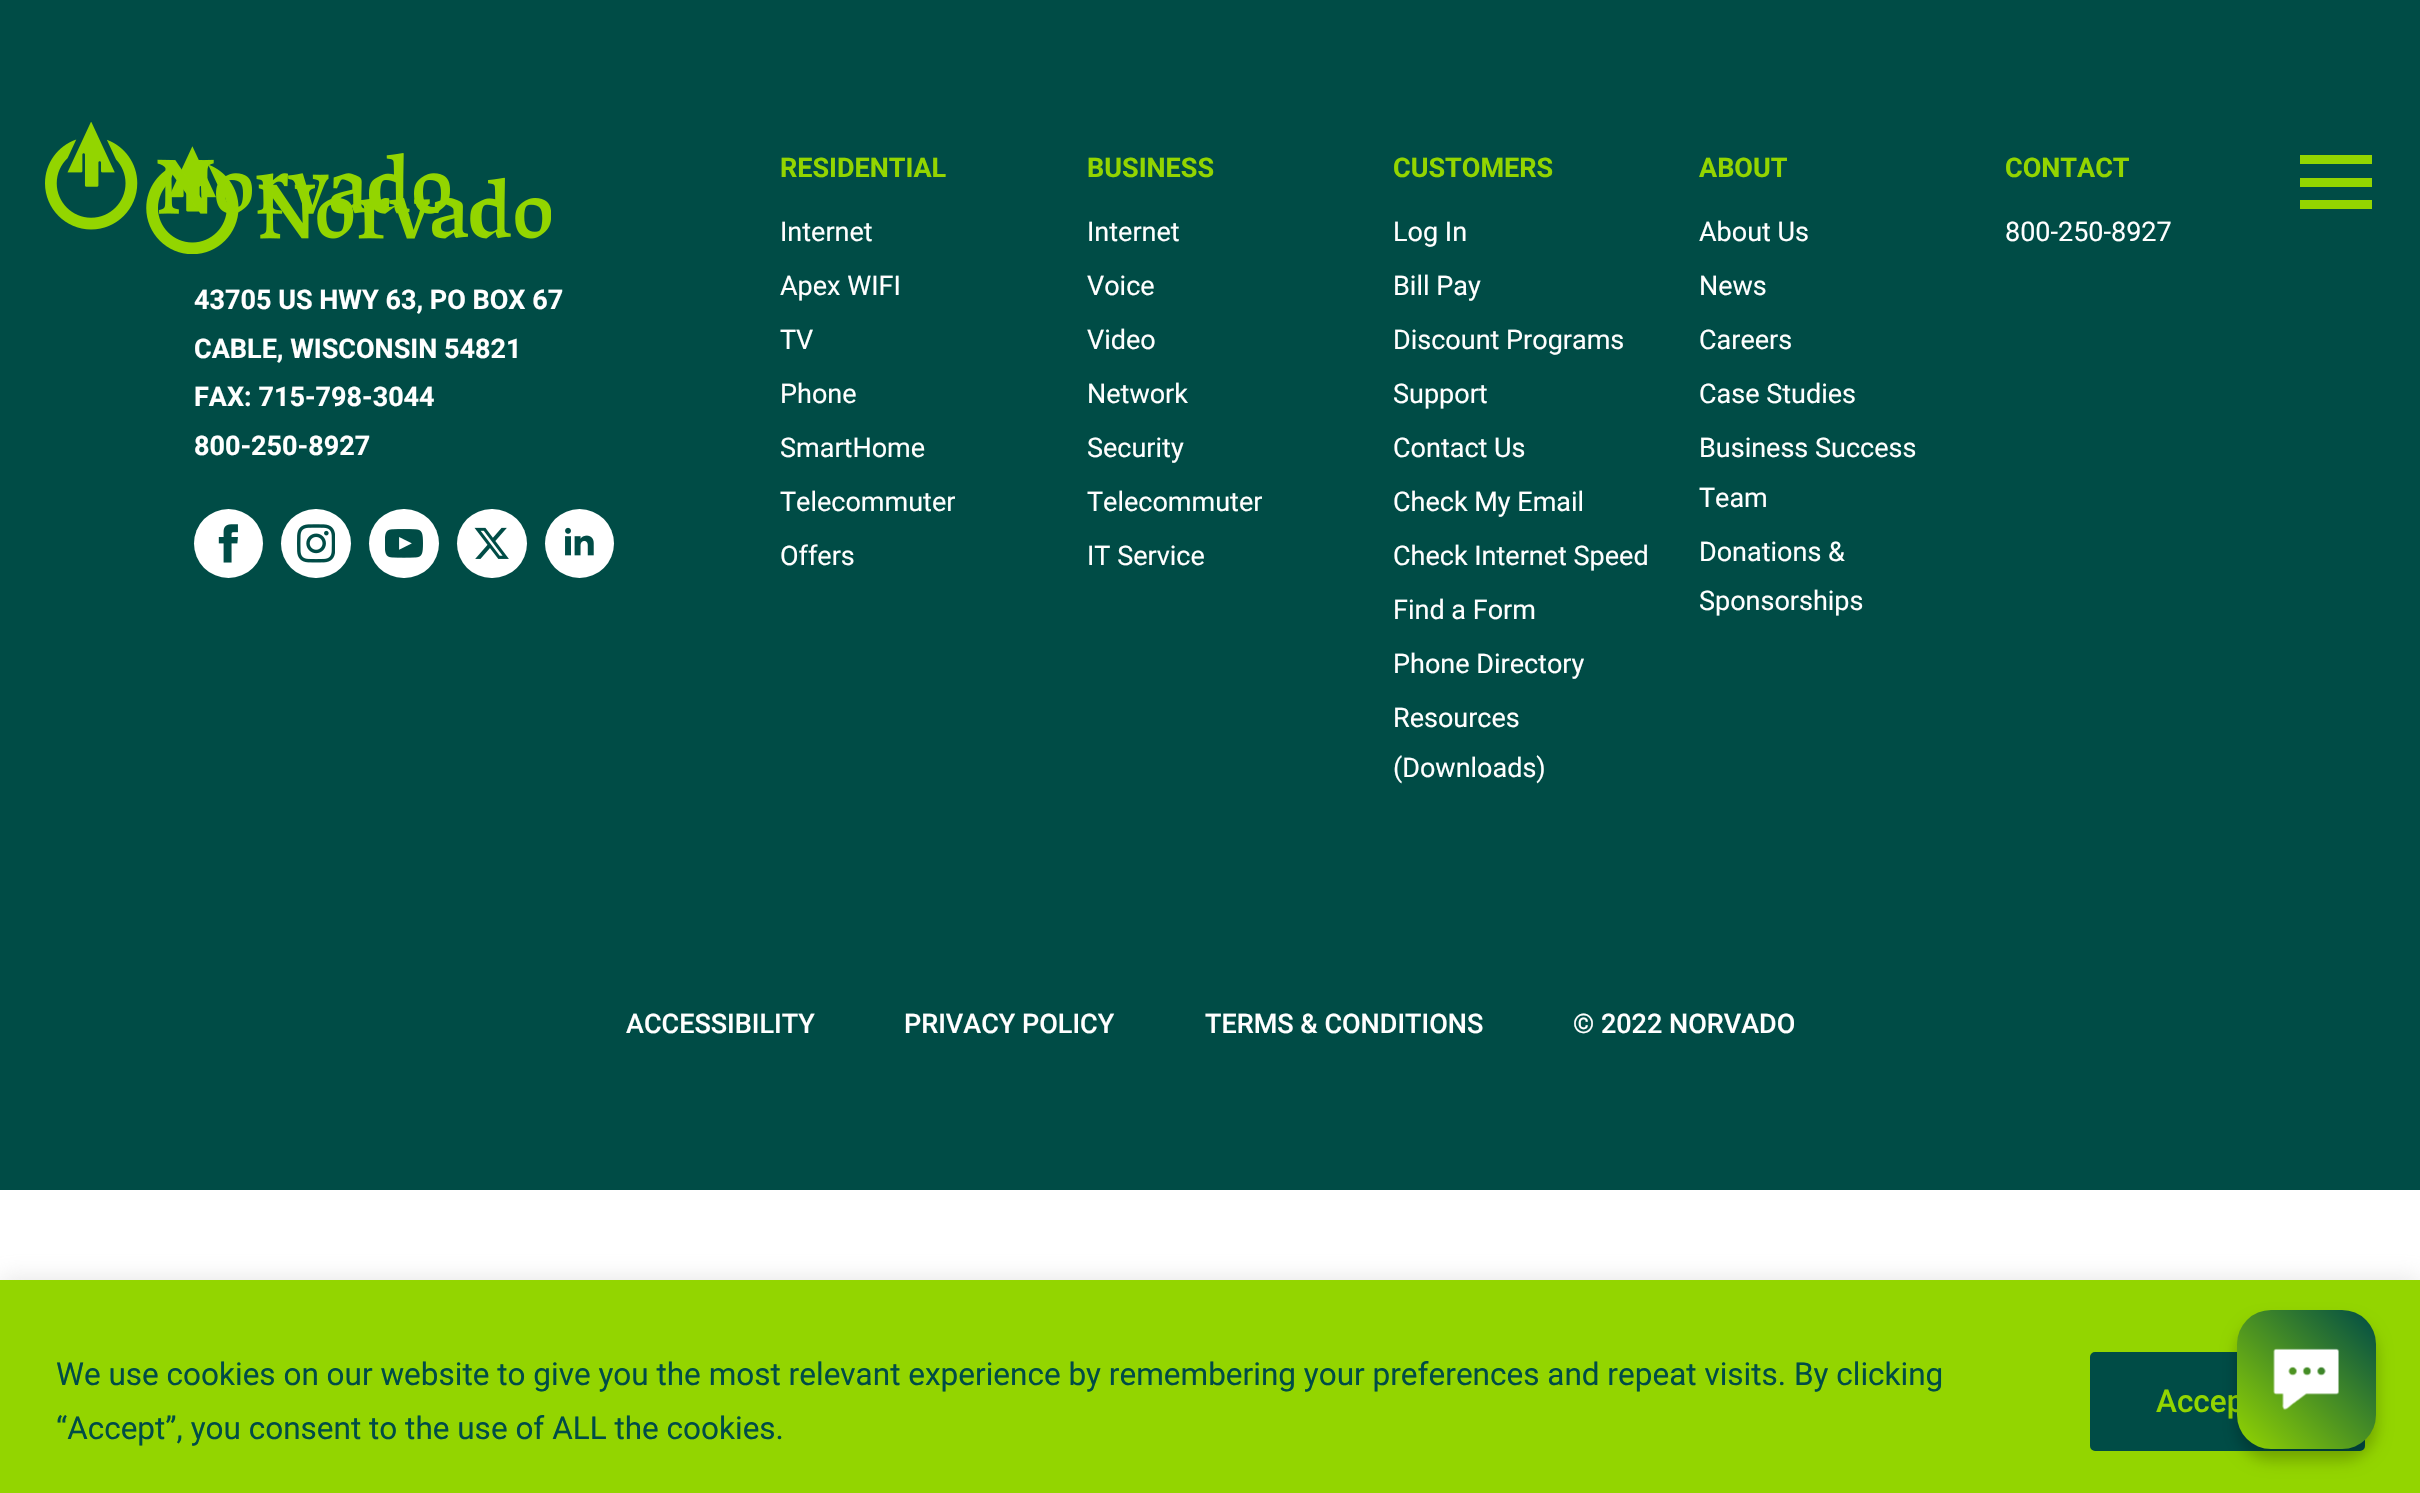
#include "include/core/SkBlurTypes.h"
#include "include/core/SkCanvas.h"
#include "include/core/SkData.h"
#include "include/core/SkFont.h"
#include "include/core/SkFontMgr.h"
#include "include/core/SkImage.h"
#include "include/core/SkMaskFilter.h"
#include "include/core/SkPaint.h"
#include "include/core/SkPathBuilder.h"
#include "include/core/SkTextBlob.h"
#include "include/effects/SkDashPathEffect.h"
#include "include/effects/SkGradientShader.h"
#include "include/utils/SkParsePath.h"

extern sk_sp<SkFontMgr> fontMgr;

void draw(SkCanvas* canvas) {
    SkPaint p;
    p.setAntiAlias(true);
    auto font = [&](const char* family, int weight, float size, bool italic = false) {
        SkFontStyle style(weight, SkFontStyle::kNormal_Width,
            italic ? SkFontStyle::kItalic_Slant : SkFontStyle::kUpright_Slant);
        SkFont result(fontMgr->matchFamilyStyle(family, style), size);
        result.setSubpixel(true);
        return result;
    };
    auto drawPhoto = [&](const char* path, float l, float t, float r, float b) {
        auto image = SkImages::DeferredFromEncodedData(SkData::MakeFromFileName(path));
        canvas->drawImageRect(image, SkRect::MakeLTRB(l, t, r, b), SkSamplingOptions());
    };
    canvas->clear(0xFFFFFFFF);
    p.setColor(0xFF004C46);
    canvas->drawRect(SkRect::MakeLTRB(0, 0, 2420, 1190), p);
    drawPhoto("media/2.png", 146, 146, 551, 254);
    drawPhoto("media/1.png", 45, 122, 450, 230);
    {
        const struct { float l, t, r, b; SkColor color; } items[] = {
            {2300, 155, 2372, 164, 0xFF93D500},
            {2300, 178, 2372, 187, 0xFF93D500},
            {2300, 200, 2372, 209, 0xFF93D500},
        };
        for (auto [l, t, r, b, color] : items) {
            p.setColor(color);
            canvas->drawRect(SkRect::MakeLTRB(l, t, r, b), p);
        }
    }
    auto font1 = font("Roboto", 700, 27);
    p.setColor(0xFFFFFFFF);
    {
        const struct { const char* s; float x, y; } items[] = {
            {"43705 US HWY 63, PO BOX 67", 194, 309},
            {"CABLE, WISCONSIN 54821", 194, 358},
            {"FAX: 715-798-3044", 194, 406},
            {"800-250-8927", 194, 455},
        };
        for (auto [s, x, y] : items) {
            canvas->drawString(s, x, y, font1, p);
        }
    }
    canvas->drawCircle(228.5f, 543.5f, 34.5f, p);
    drawPhoto("media/3.png", 218, 524, 238, 563);
    canvas->drawRoundRect(SkRect::MakeLTRB(281, 509, 351, 578), 34.5f, 34.5f, p);
    drawPhoto("media/4.png", 297, 524, 335, 563);
    canvas->drawRoundRect(SkRect::MakeLTRB(369, 509, 439, 578), 34.5f, 34.5f, p);
    drawPhoto("media/5.png", 385, 529, 423, 558);
    canvas->drawRoundRect(SkRect::MakeLTRB(457, 509, 527, 578), 34.5f, 34.5f, p);
    drawPhoto("media/6.png", 474, 527, 509, 559);
    canvas->drawCircle(579.5f, 543.5f, 34.5f, p);
    drawPhoto("media/7.png", 565, 527, 594, 556);
    p.setColor(0xFF93D500);
    canvas->drawString("RESIDENTIAL", 780, 177, font1, p);
    auto font2 = font("Roboto", 400, 27);
    p.setColor(0xFFFFFFFF);
    {
        const struct { const char* s; float x, y; } items[] = {
            {"Internet", 780, 241},
            {"Apex WIFI", 780, 295},
            {"TV", 780, 349},
            {"Phone", 780, 403},
            {"SmartHome", 780, 457},
            {"Telecommuter", 780, 511},
            {"Offers", 780, 565},
        };
        for (auto [s, x, y] : items) {
            canvas->drawString(s, x, y, font2, p);
        }
    }
    p.setColor(0xFF93D500);
    canvas->drawString("BUSINESS", 1087, 177, font1, p);
    p.setColor(0xFFFFFFFF);
    {
        const struct { const char* s; float x, y; } items[] = {
            {"Internet", 1087, 241},
            {"Voice", 1087, 295},
            {"Video", 1087, 349},
            {"Network", 1087, 403},
            {"Security", 1087, 457},
            {"Telecommuter", 1087, 511},
            {"IT Service", 1087, 565},
        };
        for (auto [s, x, y] : items) {
            canvas->drawString(s, x, y, font2, p);
        }
    }
    p.setColor(0xFF93D500);
    canvas->drawString("CUSTOMERS", 1393, 177, font1, p);
    p.setColor(0xFFFFFFFF);
    {
        const struct { const char* s; float x, y; } items[] = {
            {"Log In", 1393, 241},
            {"Bill Pay", 1393, 295},
            {"Discount Programs", 1393, 349},
            {"Support", 1393, 403},
            {"Contact Us", 1393, 457},
            {"Check My Email", 1393, 511},
            {"Check Internet Speed", 1393, 565},
            {"Find a Form", 1393, 619},
            {"Phone Directory", 1393, 673},
            {"Resources", 1393, 727},
            {"(Downloads)", 1393, 777},
        };
        for (auto [s, x, y] : items) {
            canvas->drawString(s, x, y, font2, p);
        }
    }
    p.setColor(0xFF93D500);
    canvas->drawString("ABOUT", 1699, 177, font1, p);
    p.setColor(0xFFFFFFFF);
    {
        const struct { const char* s; float x, y; } items[] = {
            {"About Us", 1699, 241},
            {"News", 1699, 295},
            {"Careers", 1699, 349},
            {"Case Studies", 1699, 403},
            {"Business Success", 1699, 457},
            {"Team", 1699, 507},
            {"Donations &", 1699, 561},
            {"Sponsorships", 1699, 610},
        };
        for (auto [s, x, y] : items) {
            canvas->drawString(s, x, y, font2, p);
        }
    }
    p.setColor(0xFF93D500);
    canvas->drawString("CONTACT", 2005, 177, font1, p);
    p.setColor(0xFFFFFFFF);
    canvas->drawString("800-250-8927", 2005, 241, font2, p);
    auto font3 = font("Roboto", 500, 27);
    {
        const struct { const char* s; float x, y; } items[] = {
            {"ACCESSIBILITY", 626, 1033},
            {"PRIVACY POLICY", 904, 1033},
            {"TERMS & CONDITIONS", 1205, 1033},
            {"© 2022 NORVADO", 1573, 1033},
        };
        for (auto [s, x, y] : items) {
            canvas->drawString(s, x, y, font3, p);
        }
    }
    p.setColor(0x4DACABAB);
    p.setMaskFilter(SkMaskFilter::MakeBlur(kNormal_SkBlurStyle, 11));
    canvas->drawRect(SkRect::MakeLTRB(0, 1278, 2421, 1492), p);
    p.setMaskFilter(nullptr);
    p.setColor(0xFF93D500);
    canvas->drawRect(SkRect::MakeLTRB(0, 1280, 2420, 1493), p);
    auto font4 = font("Roboto", 400, 31.5f);
    p.setColor(0xFF004C46);
    canvas->drawString("We use cookies on our website to give you the most relevant experience by remembering your preferences and repeat visits. By clicking", 56, 1385, font4, p);
    canvas->drawString("“Accept”, you consent to the use of ALL the cookies.", 56, 1439, font4, p);
    canvas->drawRoundRect(SkRect::MakeLTRB(2092.5f, 1354.5f, 2362.5f, 1448.5f), 2.5f, 2.5f, p);
    p.setStyle(SkPaint::kStroke_Style);
    p.setStrokeWidth(5);
    canvas->drawRoundRect(SkRect::MakeLTRB(2092.5f, 1354.5f, 2362.5f, 1448.5f), 2.5f, 2.5f, p);
    auto font5 = font("Roboto", 500, 31.5f);
    p.setStyle(SkPaint::kFill_Style);
    p.setColor(0xFF93D500);
    canvas->drawString("Accep", 2156, 1412, font5, p);
    p.setColor(0x3D000000);
    p.setMaskFilter(SkMaskFilter::MakeBlur(kNormal_SkBlurStyle, 8));
    canvas->drawRoundRect(SkRect::MakeLTRB(2237, 1321, 2376, 1460), 34, 34, p);
    p.setMaskFilter(nullptr);
    {
        const SkColor colors[] = {0xFF93D500, 0xFF004C46};
        const float stops[] = {0, 1};
        const SkPoint ends[] = {{2237, 1449}, {2376, 1310}};
        p.setShader(SkGradientShader::MakeLinear(ends, colors, stops, 2, SkTileMode::kClamp));
        p.setAlpha(255);
    }
    canvas->drawRoundRect(SkRect::MakeLTRB(2237, 1310, 2376, 1449), 34, 34, p);
    drawPhoto("media/8.png", 2273, 1348, 2339, 1410);
}
